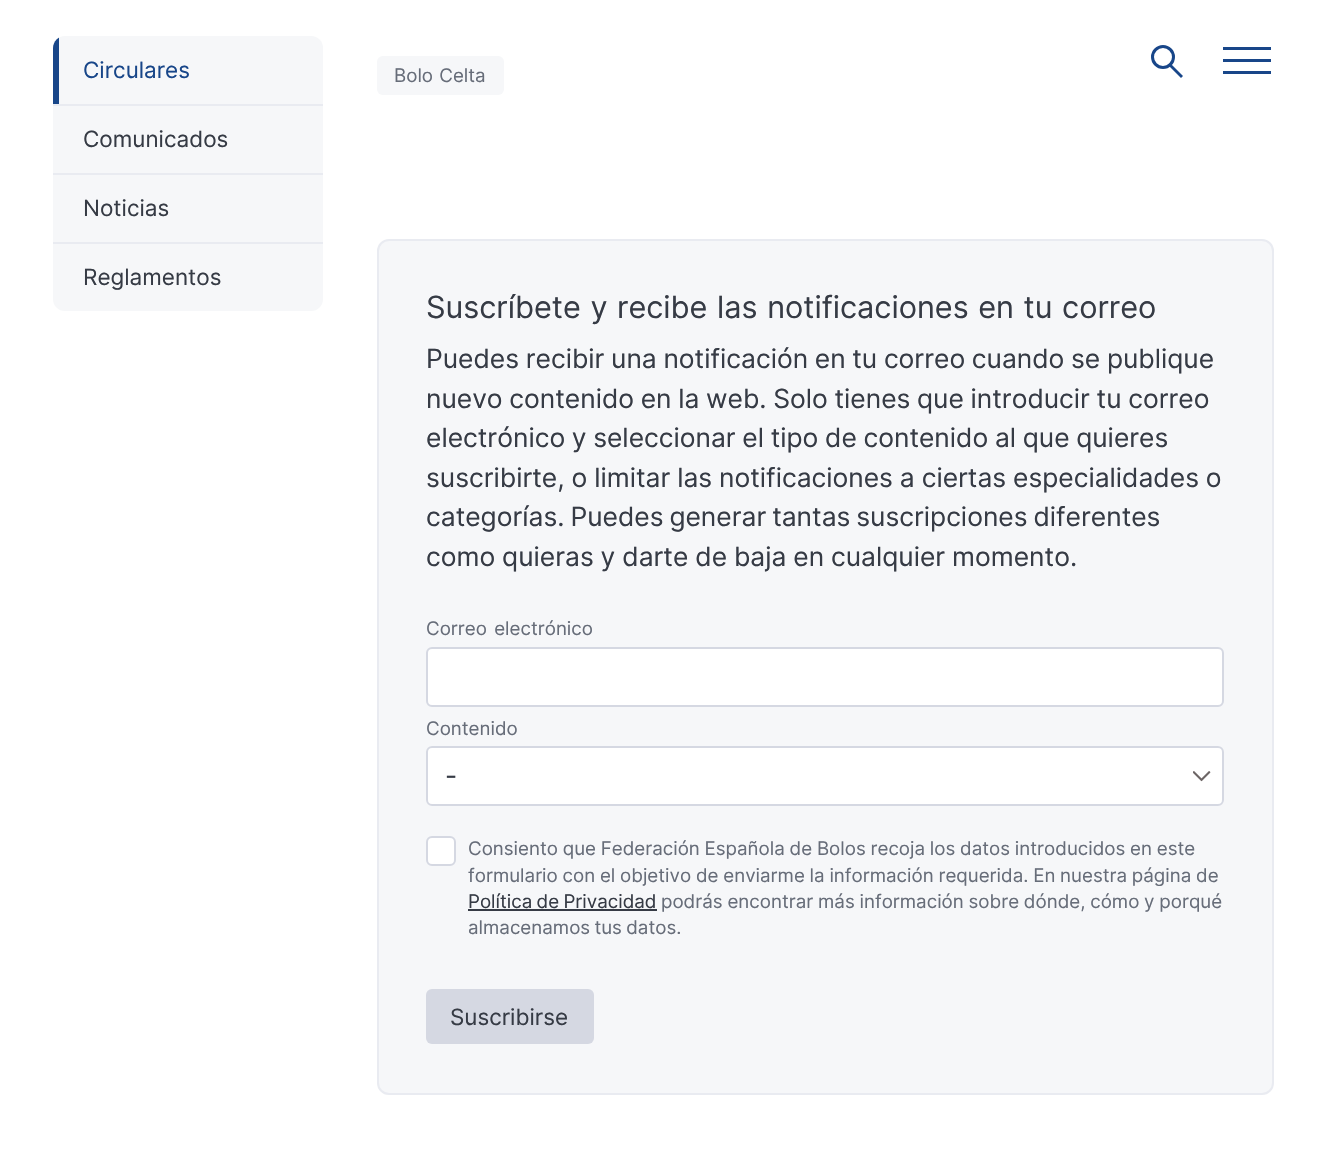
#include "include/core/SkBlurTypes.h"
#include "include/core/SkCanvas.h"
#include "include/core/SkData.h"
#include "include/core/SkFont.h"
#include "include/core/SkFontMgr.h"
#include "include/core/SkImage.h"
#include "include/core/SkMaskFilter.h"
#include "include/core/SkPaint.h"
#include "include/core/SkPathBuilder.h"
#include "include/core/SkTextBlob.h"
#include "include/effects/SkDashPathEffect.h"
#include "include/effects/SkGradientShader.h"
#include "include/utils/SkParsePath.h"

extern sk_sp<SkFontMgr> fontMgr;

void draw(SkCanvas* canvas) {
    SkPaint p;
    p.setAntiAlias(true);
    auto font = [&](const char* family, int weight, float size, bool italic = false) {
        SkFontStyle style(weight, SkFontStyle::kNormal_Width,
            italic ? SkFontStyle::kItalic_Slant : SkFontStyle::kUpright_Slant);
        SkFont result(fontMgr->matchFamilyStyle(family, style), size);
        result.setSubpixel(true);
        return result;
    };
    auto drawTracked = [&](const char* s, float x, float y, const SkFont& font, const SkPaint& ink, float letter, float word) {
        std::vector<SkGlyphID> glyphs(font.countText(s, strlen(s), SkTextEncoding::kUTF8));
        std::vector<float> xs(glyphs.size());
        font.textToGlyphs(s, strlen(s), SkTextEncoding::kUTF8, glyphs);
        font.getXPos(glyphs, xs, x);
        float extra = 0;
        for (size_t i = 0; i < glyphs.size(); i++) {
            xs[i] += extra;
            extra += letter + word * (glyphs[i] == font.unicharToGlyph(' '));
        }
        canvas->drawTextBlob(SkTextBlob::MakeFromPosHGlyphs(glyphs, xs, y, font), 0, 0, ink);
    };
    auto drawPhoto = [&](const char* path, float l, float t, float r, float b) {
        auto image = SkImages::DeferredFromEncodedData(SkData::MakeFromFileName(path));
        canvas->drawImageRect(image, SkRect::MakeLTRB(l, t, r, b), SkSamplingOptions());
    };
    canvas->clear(0xFFFFFFFF);
    p.setStyle(SkPaint::kStroke_Style);
    p.setStrokeWidth(3);
    p.setColor(0xFF184689);
    canvas->drawCircle(1163, 57, 10.5f, p);
    p.setStyle(SkPaint::kFill_Style);
    canvas->drawPath(SkPathBuilder().moveTo(1170, 63).lineTo(1183, 76).lineTo(1181, 78).lineTo(1168, 65).close().detach(), p);
    {
        const struct { float l, t, r, b; SkColor color; } items[] = {
            {1223, 59, 1271, 62, 0xFF184689},
            {1223, 47, 1271, 50, 0xFF184689},
            {1223, 71, 1271, 74, 0xFF184689},
        };
        for (auto [l, t, r, b, color] : items) {
            p.setColor(color);
            canvas->drawRect(SkRect::MakeLTRB(l, t, r, b), p);
        }
    }
    p.setColor(0xFFF6F7F9);
    canvas->drawRoundRect(SkRect::MakeLTRB(53, 36, 323, 311), 12, 12, p);
    canvas->save();
    canvas->clipPath(SkPathBuilder().moveTo(65, 36).lineTo(311, 36).cubicTo(317.5f, 36, 323, 41.5f, 323, 48).lineTo(323, 299).cubicTo(323, 305.5f, 317.5f, 311, 311, 311).lineTo(65, 311).cubicTo(58.5f, 311, 53, 305.5f, 53, 299).lineTo(53, 48).cubicTo(53, 41.5f, 58.5f, 36, 65, 36).close().detach(), true);
    p.setColor(0xFF184689);
    canvas->drawRect(SkRect::MakeLTRB(53, 36, 59, 104), p);
    canvas->restore();
    auto font1 = font("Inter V", 400, 22.5f);
    canvas->drawString("Circulares", 83, 78, font1, p);
    p.setColor(0xFFE9EBF1);
    canvas->drawRect(SkRect::MakeLTRB(53, 104, 323, 106), p);
    p.setColor(0xFF363B45);
    canvas->drawString("Comunicados", 83, 147, font1, p);
    p.setColor(0xFFE9EBF1);
    canvas->drawRect(SkRect::MakeLTRB(53, 173, 323, 175), p);
    p.setColor(0xFF363B45);
    canvas->drawString("Noticias", 83, 216, font1, p);
    p.setColor(0xFFE9EBF1);
    canvas->drawRect(SkRect::MakeLTRB(53, 242, 323, 244), p);
    p.setColor(0xFF363B45);
    canvas->drawString("Reglamentos", 83, 285, font1, p);
    p.setColor(0xFFF6F7F9);
    canvas->drawRoundRect(SkRect::MakeLTRB(377, 56, 504, 95), 6, 6, p);
    auto font2 = font("Inter V", 400, 18.75f);
    p.setColor(0xFF676D79);
    drawTracked("Bolo Celta", 394, 82, font2, p, 0, 1);
    p.setColor(0xFFF6F7F9);
    canvas->drawRoundRect(SkRect::MakeLTRB(378, 240, 1273, 1094), 11, 11, p);
    p.setStyle(SkPaint::kStroke_Style);
    p.setStrokeWidth(2);
    p.setColor(0xFFE9EBF1);
    canvas->drawRoundRect(SkRect::MakeLTRB(378, 240, 1273, 1094), 11, 11, p);
    auto font3 = font("Inter V", 400, 30.6f);
    p.setStyle(SkPaint::kFill_Style);
    p.setColor(0xFF363B45);
    drawTracked("Suscríbete y recibe las notificaciones en tu correo", 426, 318, font3, p, 0, 1);
    auto font4 = font("Inter V", 400, 26.4f);
    {
        const struct { const char* s; float x, y; } items[] = {
            {"Puedes recibir una notificación en tu correo cuando se publique", 426, 368},
            {"nuevo contenido en la web. Solo tienes que introducir tu correo", 426, 408},
            {"electrónico y seleccionar el tipo de contenido al que quieres", 426, 447},
        };
        for (auto [s, x, y] : items) {
            drawTracked(s, x, y, font4, p, 0, -0.75f);
        }
    }
    drawTracked("suscribirte, o limitar las notificaciones a ciertas especialidades o", 426, 487, font4, p, 0, -0.5f);
    drawTracked("categorías. Puedes generar tantas suscripciones diferentes", 426, 526, font4, p, 0, -1.5f);
    drawTracked("como quieras y darte de baja en cualquier momento.", 426, 566, font4, p, 0, -0.5f);
    p.setColor(0xFF676D79);
    drawTracked("Correo electrónico", 426, 635, font2, p, 0, 2);
    p.setColor(0xFFFFFFFF);
    canvas->drawRoundRect(SkRect::MakeLTRB(427, 648, 1223, 706), 5, 5, p);
    p.setStyle(SkPaint::kStroke_Style);
    p.setColor(0xFFD5D8E2);
    canvas->drawRoundRect(SkRect::MakeLTRB(427, 648, 1223, 706), 5, 5, p);
    p.setStyle(SkPaint::kFill_Style);
    p.setColor(0xFF676D79);
    canvas->drawString("Contenido", 426, 735, font2, p);
    p.setColor(0xFFFFFFFF);
    canvas->drawRoundRect(SkRect::MakeLTRB(426, 746, 1224, 806), 6, 6, p);
    drawPhoto("media/1.png", 1193, 771, 1211, 782);
    p.setStyle(SkPaint::kStroke_Style);
    p.setColor(0xFFD5D8E2);
    canvas->drawRoundRect(SkRect::MakeLTRB(427, 747, 1223, 805), 5, 5, p);
    p.setStyle(SkPaint::kFill_Style);
    p.setColor(0xFF363B45);
    canvas->drawString("-", 445, 785, font4, p);
    p.setColor(0xFFFFFFFF);
    canvas->drawRoundRect(SkRect::MakeLTRB(427, 837, 455, 865), 5, 5, p);
    p.setStyle(SkPaint::kStroke_Style);
    p.setColor(0xFFD5D8E2);
    canvas->drawRoundRect(SkRect::MakeLTRB(427, 837, 455, 865), 5, 5, p);
    p.setStyle(SkPaint::kFill_Style);
    p.setColor(0xFF676D79);
    drawTracked("Consiento que Federación Española de Bolos recoja los datos introducidos en este", 468, 855, font2, p, 0, -0.5f);
    drawTracked("formulario con el objetivo de enviarme la información requerida. En nuestra página de", 468, 882, font2, p, 0, -0.5f);
    p.setColor(0xFF363B45);
    drawTracked("Política de Privacidad", 468, 908, font2, p, 0, -1);
    canvas->drawRect(SkRect::MakeLTRB(468, 909, 657, 911), p);
    p.setColor(0xFF676D79);
    drawTracked("podrás encontrar más información sobre dónde, cómo y porqué", 661, 908, font2, p, 0, -0.5f);
    drawTracked("almacenamos tus datos.", 468, 934, font2, p, 0, -1);
    p.setColor(0xFFD5D8E2);
    canvas->drawRoundRect(SkRect::MakeLTRB(426, 989, 594, 1044), 6, 6, p);
    p.setColor(0xFF363B45);
    canvas->drawString("Suscribirse", 450, 1025, font1, p);
}
